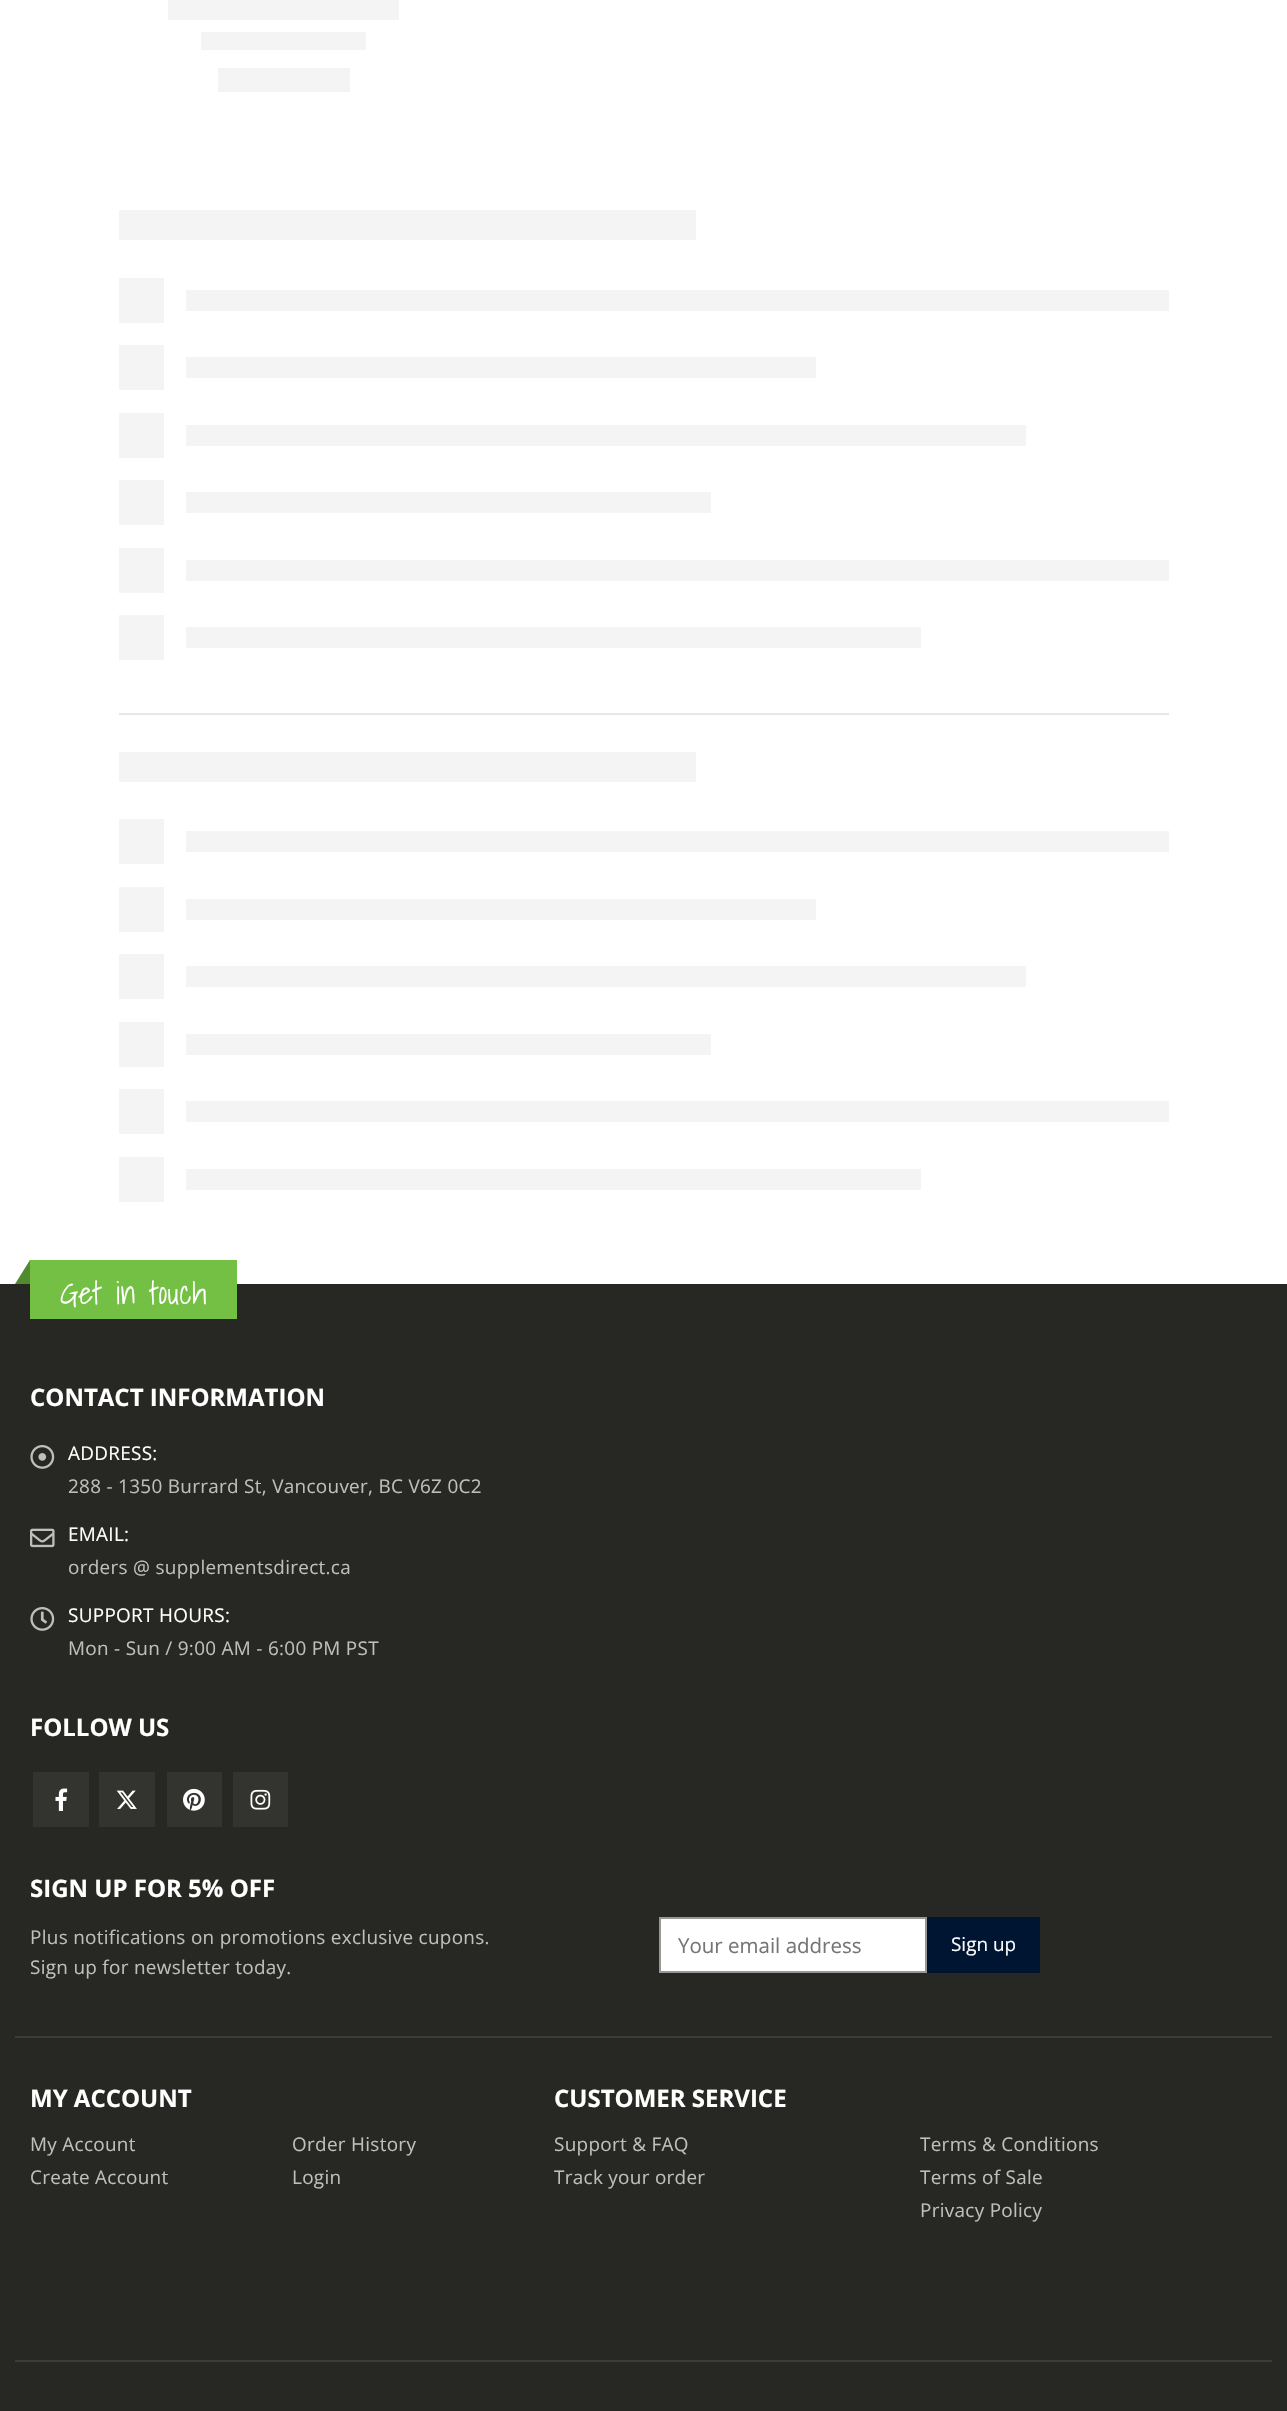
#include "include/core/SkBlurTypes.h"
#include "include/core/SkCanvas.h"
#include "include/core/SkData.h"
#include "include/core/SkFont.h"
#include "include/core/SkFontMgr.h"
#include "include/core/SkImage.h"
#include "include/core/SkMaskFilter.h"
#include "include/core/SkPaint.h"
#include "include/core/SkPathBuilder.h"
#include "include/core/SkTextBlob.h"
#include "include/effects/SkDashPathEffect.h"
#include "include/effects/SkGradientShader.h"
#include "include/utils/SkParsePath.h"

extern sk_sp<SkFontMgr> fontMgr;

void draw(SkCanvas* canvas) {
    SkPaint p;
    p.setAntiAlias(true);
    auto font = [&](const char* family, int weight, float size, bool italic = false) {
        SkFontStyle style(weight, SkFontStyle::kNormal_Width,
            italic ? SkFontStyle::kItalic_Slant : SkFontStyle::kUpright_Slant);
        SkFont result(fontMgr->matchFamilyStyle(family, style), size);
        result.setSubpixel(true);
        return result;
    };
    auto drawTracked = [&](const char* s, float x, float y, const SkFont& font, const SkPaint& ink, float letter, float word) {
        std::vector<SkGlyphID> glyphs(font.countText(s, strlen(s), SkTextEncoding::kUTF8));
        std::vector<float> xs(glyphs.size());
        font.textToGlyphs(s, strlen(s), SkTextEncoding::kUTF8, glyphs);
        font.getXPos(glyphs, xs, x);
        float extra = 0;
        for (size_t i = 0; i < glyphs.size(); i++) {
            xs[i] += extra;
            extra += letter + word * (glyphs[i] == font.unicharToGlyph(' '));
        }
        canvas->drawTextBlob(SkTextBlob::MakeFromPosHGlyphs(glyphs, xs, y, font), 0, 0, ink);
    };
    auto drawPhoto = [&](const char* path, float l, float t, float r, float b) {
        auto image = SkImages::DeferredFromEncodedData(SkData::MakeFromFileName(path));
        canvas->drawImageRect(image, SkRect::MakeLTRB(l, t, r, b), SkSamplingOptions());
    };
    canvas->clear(0xFFFFFFFF);
    {
        const struct { float l, t, r, b; SkColor color; } items[] = {
            {218, 68, 350, 92, 0xFFF4F4F4},
            {201, 32, 366, 50, 0xFFF4F4F4},
            {168, 0, 399, 20, 0xFFF4F4F4},
            {119, 713, 1169, 715, 0xFFE7E7E7},
            {186, 627, 921, 648, 0xFFF4F4F4},
            {119, 615, 164, 660, 0xFFF4F4F4},
            {186, 560, 1169, 581, 0xFFF4F4F4},
            {119, 548, 164, 593, 0xFFF4F4F4},
            {186, 492, 711, 513, 0xFFF4F4F4},
            {119, 480, 164, 525, 0xFFF4F4F4},
            {186, 425, 1026, 446, 0xFFF4F4F4},
            {119, 413, 164, 458, 0xFFF4F4F4},
            {186, 357, 816, 378, 0xFFF4F4F4},
            {119, 345, 164, 390, 0xFFF4F4F4},
            {186, 290, 1169, 311, 0xFFF4F4F4},
            {119, 278, 164, 323, 0xFFF4F4F4},
            {119, 210, 696, 240, 0xFFF4F4F4},
            {186, 1169, 921, 1190, 0xFFF4F4F4},
            {119, 1157, 164, 1202, 0xFFF4F4F4},
            {186, 1101, 1169, 1122, 0xFFF4F4F4},
            {119, 1089, 164, 1134, 0xFFF4F4F4},
            {186, 1034, 711, 1055, 0xFFF4F4F4},
            {119, 1022, 164, 1067, 0xFFF4F4F4},
            {186, 966, 1026, 987, 0xFFF4F4F4},
            {119, 954, 164, 999, 0xFFF4F4F4},
            {186, 899, 816, 920, 0xFFF4F4F4},
            {119, 887, 164, 932, 0xFFF4F4F4},
            {186, 831, 1169, 852, 0xFFF4F4F4},
            {119, 819, 164, 864, 0xFFF4F4F4},
            {119, 752, 696, 782, 0xFFF4F4F4},
            {0, 1284, 1287, 2411, 0xFF272723},
            {30, 1260, 237, 1319, 0xFF74C044},
        };
        for (auto [l, t, r, b, color] : items) {
            p.setColor(color);
            canvas->drawRect(SkRect::MakeLTRB(l, t, r, b), p);
        }
    }
    p.setColor(0xFF528A2F);
    canvas->drawPath(SkPathBuilder().moveTo(30, 1260).lineTo(30, 1284).lineTo(15, 1284).close().detach(), p);
    auto font1 = font("Shadows Into Light", 300, 31);
    p.setColor(0xFFFFFFFF);
    drawTracked("Get in touch", 60, 1304, font1, p, 0.3f, 0);
    auto font2 = font("Open Sans", 700, 24);
    canvas->drawString("CONTACT INFORMATION", 30, 1406, font2, p);
    drawPhoto("media/1.png", 30, 1445, 55, 1469);
    auto font3 = font("Open Sans", 400, 18.9f);
    drawTracked("ADDRESS:", 68, 1460, font3, p, 0.3f, 0);
    p.setColor(0xFFBEBEBE);
    drawTracked("288 - 1350 Burrard St, Vancouver, BC V6Z 0C2", 68, 1493, font3, p, 0.3f, 0);
    drawPhoto("media/2.png", 30, 1528, 55, 1548);
    p.setColor(0xFFFFFFFF);
    drawTracked("EMAIL:", 68, 1541, font3, p, 0.3f, 0);
    p.setColor(0xFFBEBEBE);
    drawTracked("orders @ supplementsdirect.ca", 68, 1574, font3, p, 0.3f, 0);
    drawPhoto("media/3.png", 30, 1607, 55, 1631);
    p.setColor(0xFFFFFFFF);
    drawTracked("SUPPORT HOURS:", 68, 1622, font3, p, 0.3f, 0);
    p.setColor(0xFFBEBEBE);
    drawTracked("Mon - Sun / 9:00 AM - 6:00 PM PST", 68, 1655, font3, p, 0.3f, 0);
    p.setColor(0xFFFFFFFF);
    canvas->drawString("FOLLOW US", 30, 1736, font2, p);
    p.setColor(0xFF33332F);
    canvas->drawRect(SkRect::MakeLTRB(33, 1772, 89, 1827), p);
    drawPhoto("media/4.png", 55, 1788, 68, 1811);
    canvas->drawRect(SkRect::MakeLTRB(99, 1772, 155, 1827), p);
    drawPhoto("media/5.png", 116, 1790, 137, 1809);
    canvas->drawRect(SkRect::MakeLTRB(167, 1772, 222, 1827), p);
    drawPhoto("media/6.png", 183, 1788, 205, 1811);
    canvas->drawRect(SkRect::MakeLTRB(233, 1772, 288, 1827), p);
    drawPhoto("media/7.png", 250, 1789, 271, 1810);
    p.setColor(0xFFFFFFFF);
    canvas->drawString("SIGN UP FOR 5% OFF", 30, 1897, font2, p);
    p.setColor(0xFFBEBEBE);
    drawTracked("Plus notifications on promotions exclusive cupons.", 30, 1944, font3, p, 0.3f, 0);
    drawTracked("Sign up for newsletter today.", 30, 1974, font3, p, 0.3f, 0);
    p.setColor(0xFFFFFFFF);
    canvas->drawRect(SkRect::MakeLTRB(660, 1918, 926, 1972), p);
    p.setStyle(SkPaint::kStroke_Style);
    p.setStrokeWidth(2);
    p.setColor(0xFF9B9696);
    canvas->drawRect(SkRect::MakeLTRB(660, 1918, 926, 1972), p);
    auto font4 = font("Open Sans", 400, 20.5f);
    p.setStyle(SkPaint::kFill_Style);
    p.setColor(0xFF757575);
    canvas->drawString("Your email address", 678, 1953, font4, p);
    p.setColor(0xFF001532);
    canvas->drawRect(SkRect::MakeLTRB(927, 1917, 1040, 1973), p);
    p.setColor(0xFFFFFFFF);
    canvas->drawString("Sign up", 951, 1951, font3, p);
    p.setColor(0xFF3D3D38);
    canvas->drawRect(SkRect::MakeLTRB(15, 2036, 1272, 2038), p);
    p.setColor(0xFFFFFFFF);
    canvas->drawString("MY ACCOUNT", 30, 2107, font2, p);
    p.setColor(0xFFBEBEBE);
    {
        const struct { const char* s; float x, y; } items[] = {
            {"My Account", 30, 2151},
            {"Create Account", 30, 2184},
            {"Order History", 292, 2151},
            {"Login", 292, 2184},
        };
        for (auto [s, x, y] : items) {
            drawTracked(s, x, y, font3, p, 0.3f, 0);
        }
    }
    p.setColor(0xFFFFFFFF);
    canvas->drawString("CUSTOMER SERVICE", 554, 2107, font2, p);
    p.setColor(0xFFBEBEBE);
    {
        const struct { const char* s; float x, y; } items[] = {
            {"Support & FAQ", 554, 2151},
            {"Track your order", 554, 2184},
            {"Terms & Conditions", 920, 2151},
            {"Terms of Sale", 920, 2184},
            {"Privacy Policy", 920, 2217},
        };
        for (auto [s, x, y] : items) {
            drawTracked(s, x, y, font3, p, 0.3f, 0);
        }
    }
    p.setColor(0xFF3D3D38);
    canvas->drawRect(SkRect::MakeLTRB(15, 2360, 1272, 2362), p);
}
